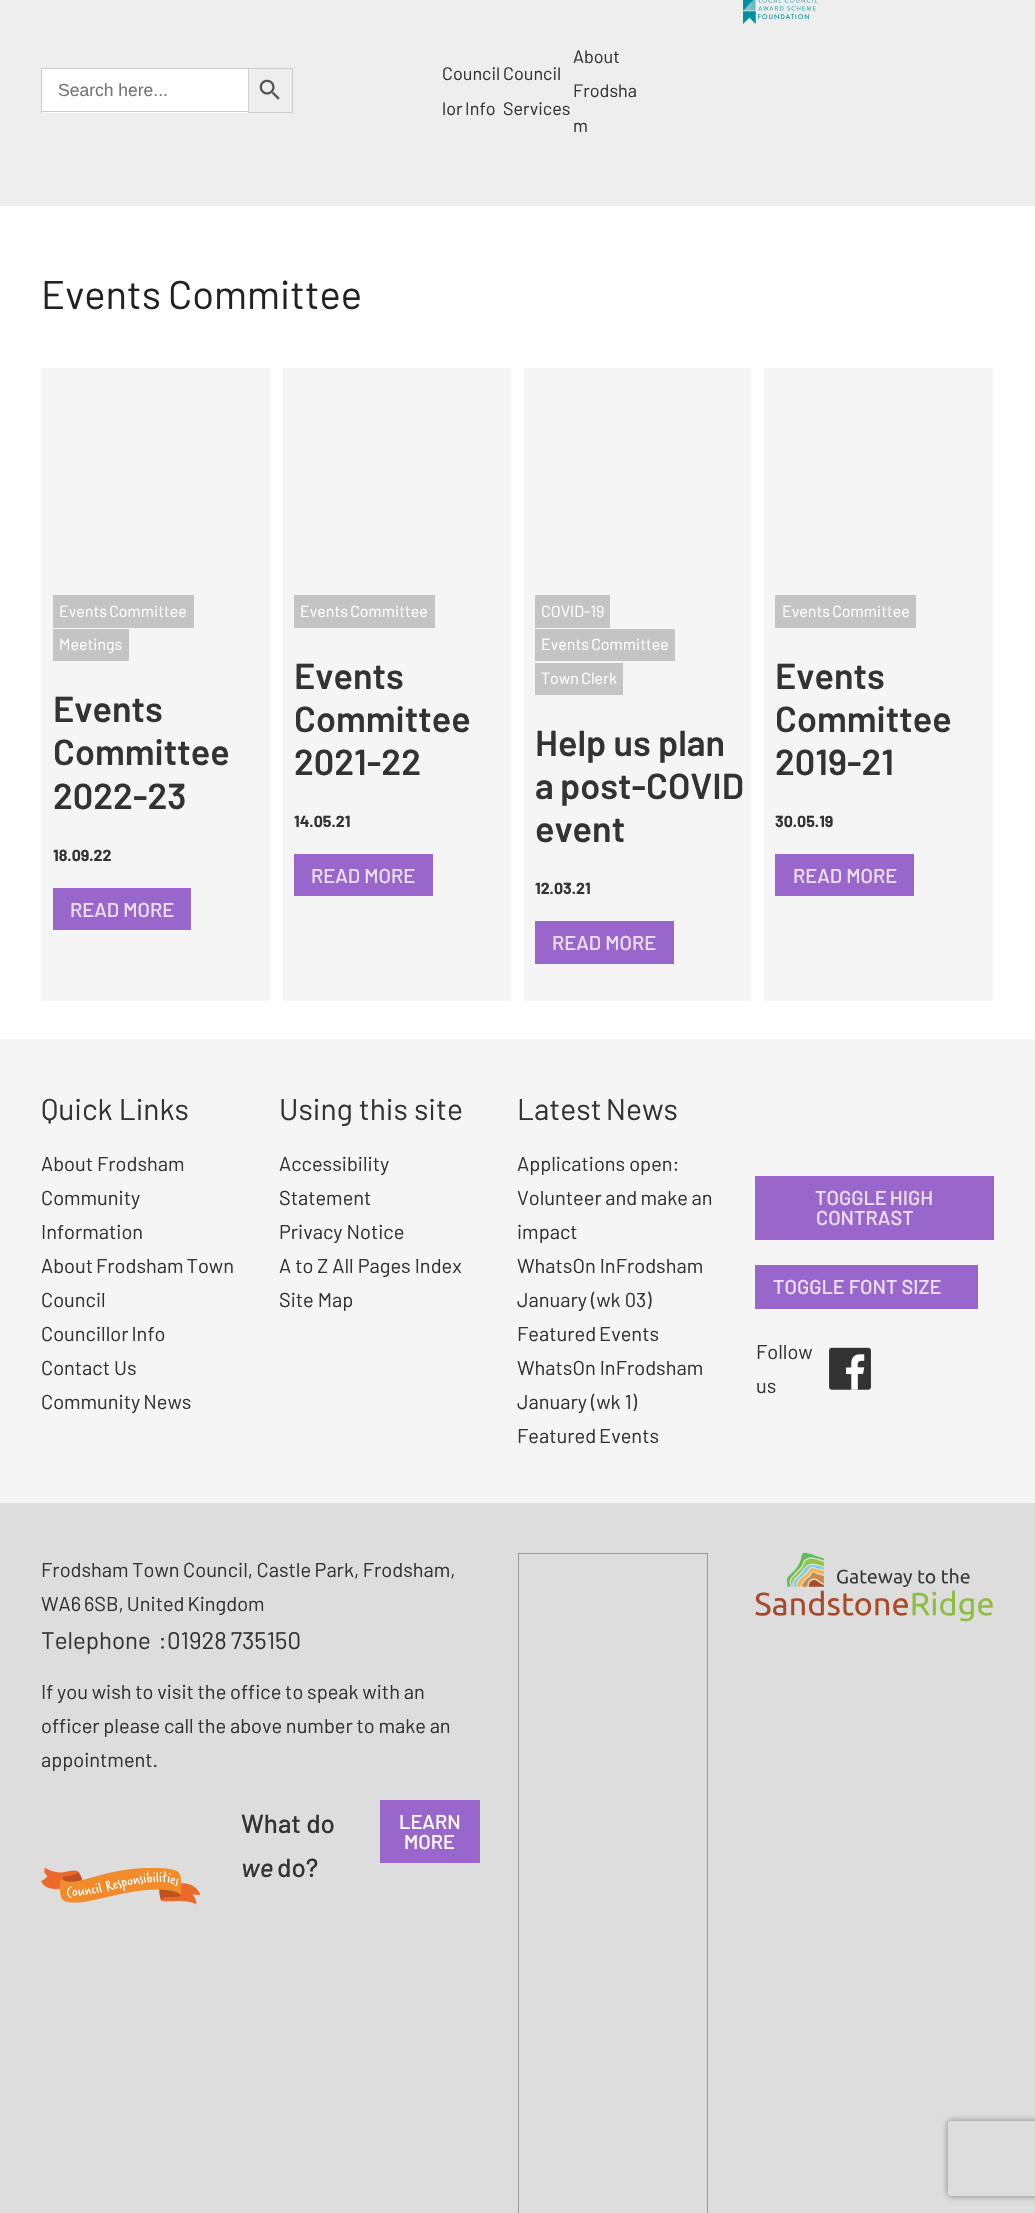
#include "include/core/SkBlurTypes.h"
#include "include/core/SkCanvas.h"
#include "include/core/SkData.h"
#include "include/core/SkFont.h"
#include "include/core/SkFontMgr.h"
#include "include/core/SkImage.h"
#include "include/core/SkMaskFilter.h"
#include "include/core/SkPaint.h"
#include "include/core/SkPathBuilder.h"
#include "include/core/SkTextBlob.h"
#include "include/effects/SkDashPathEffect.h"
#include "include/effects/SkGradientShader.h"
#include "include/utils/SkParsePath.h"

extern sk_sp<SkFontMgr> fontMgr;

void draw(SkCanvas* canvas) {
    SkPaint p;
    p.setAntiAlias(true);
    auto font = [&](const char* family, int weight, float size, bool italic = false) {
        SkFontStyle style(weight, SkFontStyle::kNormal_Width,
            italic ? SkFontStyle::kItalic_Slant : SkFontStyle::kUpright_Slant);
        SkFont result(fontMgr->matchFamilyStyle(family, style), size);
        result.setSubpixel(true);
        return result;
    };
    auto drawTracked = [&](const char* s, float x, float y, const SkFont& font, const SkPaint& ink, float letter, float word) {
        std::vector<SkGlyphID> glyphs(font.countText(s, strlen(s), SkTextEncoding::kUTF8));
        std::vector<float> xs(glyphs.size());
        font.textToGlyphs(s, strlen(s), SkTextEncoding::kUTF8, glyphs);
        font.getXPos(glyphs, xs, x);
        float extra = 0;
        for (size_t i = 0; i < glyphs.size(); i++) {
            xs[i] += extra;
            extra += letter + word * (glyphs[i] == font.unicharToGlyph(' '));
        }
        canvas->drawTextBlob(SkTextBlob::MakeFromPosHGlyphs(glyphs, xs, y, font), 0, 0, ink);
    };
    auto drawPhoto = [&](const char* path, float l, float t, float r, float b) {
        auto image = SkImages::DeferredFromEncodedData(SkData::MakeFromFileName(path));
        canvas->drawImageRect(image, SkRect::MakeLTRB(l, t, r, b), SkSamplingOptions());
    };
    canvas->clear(0xFFFFFFFF);
    p.setColor(0xFFEEEEEE);
    canvas->drawRect(SkRect::MakeLTRB(0, 0, 1035, 206), p);
    drawPhoto("media/1.png", 743, 0, 818, 24);
    {
        const struct { float l, t, r, b; SkColor color; } items[] = {
            {42, 69, 248, 113, 0xFFFFFFFF},
            {41, 68, 248, 69, 0xFFCCCCCC},
            {41, 111, 248, 112, 0xFFCCCCCC},
            {41, 68, 42, 113, 0xFFCCCCCC},
        };
        for (auto [l, t, r, b, color] : items) {
            p.setColor(color);
            canvas->drawRect(SkRect::MakeLTRB(l, t, r, b), p);
        }
    }
    auto font1 = font("Liberation Sans", 400, 17.5f);
    p.setColor(0xFF757575);
    canvas->drawString("Search here...", 58, 96, font1, p);
    p.setStyle(SkPaint::kStroke_Style);
    p.setStrokeWidth(1);
    p.setColor(0xFFCCCCCC);
    canvas->drawRect(SkRect::MakeLTRB(248.5f, 68.5f, 292.5f, 112.5f), p);
    drawPhoto("media/2.png", 259, 79, 280, 100);
    auto font2 = font("Barlow", 400, 18);
    p.setStyle(SkPaint::kFill_Style);
    p.setColor(0xFF333333);
    canvas->drawString("Council", 442, 80, font2, p);
    drawTracked("lor Info", 442, 115, font2, p, 0, -1);
    {
        const struct { const char* s; float x, y; } items[] = {
            {"Council", 503, 80},
            {"Services", 503, 115},
            {"About", 573, 63},
            {"Frodsha", 573, 97},
            {"m", 573, 132},
        };
        for (auto [s, x, y] : items) {
            canvas->drawString(s, x, y, font2, p);
        }
    }
    auto font3 = font("Barlow", 400, 40);
    p.setColor(0xFF222222);
    drawTracked("Events Committee", 41, 309, font3, p, 0, -1);
    p.setColor(0xFFF5F5F5);
    canvas->drawRect(SkRect::MakeLTRB(41, 368, 270, 1001), p);
    p.setColor(0xFFC4C4C4);
    canvas->drawRect(SkRect::MakeLTRB(53, 595, 194, 628), p);
    auto font4 = font("Barlow", 400, 16);
    p.setColor(0xFFFFFFFF);
    drawTracked("Events Committee", 59, 617, font4, p, 0, -1);
    p.setColor(0xFFC4C4C4);
    canvas->drawRect(SkRect::MakeLTRB(53, 629, 129, 661), p);
    p.setColor(0xFFFFFFFF);
    canvas->drawString("Meetings", 59, 650, font4, p);
    auto font5 = font("Barlow", 600, 36);
    p.setColor(0xFF333333);
    {
        const struct { const char* s; float x, y; } items[] = {
            {"Events", 53, 722},
            {"Committee", 53, 765},
            {"2022-23", 53, 809},
        };
        for (auto [s, x, y] : items) {
            canvas->drawString(s, x, y, font5, p);
        }
    }
    auto font6 = font("Barlow", 700, 16);
    canvas->drawString("18.09.22", 53, 861, font6, p);
    p.setColor(0xFF9966CC);
    canvas->drawRect(SkRect::MakeLTRB(53, 888, 191, 930), p);
    auto font7 = font("Barlow", 500, 20);
    p.setColor(0xFFEBE0F5);
    canvas->drawString("READ MORE", 70, 917, font7, p);
    p.setColor(0xFFF5F5F5);
    canvas->drawRect(SkRect::MakeLTRB(283, 368, 511, 1001), p);
    p.setColor(0xFFC4C4C4);
    canvas->drawRect(SkRect::MakeLTRB(294, 595, 435, 628), p);
    p.setColor(0xFFFFFFFF);
    drawTracked("Events Committee", 300, 617, font4, p, 0, -1);
    p.setColor(0xFF333333);
    {
        const struct { const char* s; float x, y; } items[] = {
            {"Events", 294, 689},
            {"Committee", 294, 732},
            {"2021-22", 294, 775},
        };
        for (auto [s, x, y] : items) {
            canvas->drawString(s, x, y, font5, p);
        }
    }
    canvas->drawString("14.05.21", 294, 827, font6, p);
    p.setColor(0xFF9966CC);
    canvas->drawRect(SkRect::MakeLTRB(294, 854, 433, 896), p);
    p.setColor(0xFFEBE0F5);
    canvas->drawString("READ MORE", 311, 883, font7, p);
    p.setColor(0xFFF5F5F5);
    canvas->drawRect(SkRect::MakeLTRB(524, 368, 751, 1001), p);
    p.setColor(0xFFC4C4C4);
    canvas->drawRect(SkRect::MakeLTRB(535, 595, 610, 628), p);
    p.setColor(0xFFFFFFFF);
    canvas->drawString("COVID-19", 541, 617, font4, p);
    p.setColor(0xFFC4C4C4);
    canvas->drawRect(SkRect::MakeLTRB(535, 629, 675, 661), p);
    p.setColor(0xFFFFFFFF);
    drawTracked("Events Committee", 541, 650, font4, p, 0, -1);
    p.setColor(0xFFC4C4C4);
    canvas->drawRect(SkRect::MakeLTRB(535, 663, 623, 695), p);
    p.setColor(0xFFFFFFFF);
    drawTracked("Town Clerk", 541, 684, font4, p, 0, -1);
    p.setColor(0xFF333333);
    canvas->drawString("Help us plan", 535, 756, font5, p);
    drawTracked("a post-COVID", 535, 799, font5, p, 0, -1);
    canvas->drawString("event", 535, 842, font5, p);
    canvas->drawString("12.03.21", 535, 894, font6, p);
    p.setColor(0xFF9966CC);
    canvas->drawRect(SkRect::MakeLTRB(535, 921, 674, 964), p);
    p.setColor(0xFFEBE0F5);
    canvas->drawString("READ MORE", 552, 950, font7, p);
    p.setColor(0xFFF5F5F5);
    canvas->drawRect(SkRect::MakeLTRB(764, 368, 993, 1001), p);
    p.setColor(0xFFC4C4C4);
    canvas->drawRect(SkRect::MakeLTRB(775, 595, 916, 628), p);
    p.setColor(0xFFFFFFFF);
    drawTracked("Events Committee", 782, 617, font4, p, 0, -1);
    p.setColor(0xFF333333);
    {
        const struct { const char* s; float x, y; } items[] = {
            {"Events", 775, 689},
            {"Committee", 775, 732},
            {"2019-21", 775, 775},
        };
        for (auto [s, x, y] : items) {
            canvas->drawString(s, x, y, font5, p);
        }
    }
    canvas->drawString("30.05.19", 775, 827, font6, p);
    p.setColor(0xFF9966CC);
    canvas->drawRect(SkRect::MakeLTRB(775, 854, 914, 896), p);
    p.setColor(0xFFEBE0F5);
    canvas->drawString("READ MORE", 793, 883, font7, p);
    p.setColor(0xFFF5F5F5);
    canvas->drawRect(SkRect::MakeLTRB(0, 1039, 1035, 1503), p);
    auto font8 = font("Barlow", 400, 30);
    p.setColor(0xFF333333);
    canvas->drawString("Quick Links", 41, 1120, font8, p);
    auto font9 = font("Barlow", 400, 20);
    {
        const struct { const char* s; float x, y; } items[] = {
            {"About Frodsham", 41, 1171},
            {"Community", 41, 1205},
            {"Information", 41, 1239},
        };
        for (auto [s, x, y] : items) {
            canvas->drawString(s, x, y, font9, p);
        }
    }
    drawTracked("About Frodsham Town", 41, 1273, font9, p, 0, -1);
    canvas->drawString("Council", 41, 1307, font9, p);
    drawTracked("Councillor Info", 41, 1341, font9, p, 0, -1);
    canvas->drawString("Contact Us", 41, 1375, font9, p);
    drawTracked("Community News", 41, 1409, font9, p, 0, -1);
    canvas->drawString("Using this site", 279, 1120, font8, p);
    {
        const struct { const char* s; float x, y; } items[] = {
            {"Accessibility", 279, 1171},
            {"Statement", 279, 1205},
            {"Privacy Notice", 279, 1239},
            {"A to Z All Pages Index", 279, 1273},
            {"Site Map", 279, 1307},
        };
        for (auto [s, x, y] : items) {
            canvas->drawString(s, x, y, font9, p);
        }
    }
    drawTracked("Latest News", 517, 1120, font8, p, 0, -2);
    canvas->drawString("Applications open:", 517, 1171, font9, p);
    drawTracked("Volunteer and make an", 517, 1205, font9, p, 0, -0.5f);
    {
        const struct { const char* s; float x, y; } items[] = {
            {"impact", 517, 1239},
            {"WhatsOn InFrodsham", 517, 1273},
            {"January (wk 03)", 517, 1307},
        };
        for (auto [s, x, y] : items) {
            canvas->drawString(s, x, y, font9, p);
        }
    }
    drawTracked("Featured Events", 517, 1341, font9, p, 0, -1);
    canvas->drawString("WhatsOn InFrodsham", 517, 1375, font9, p);
    canvas->drawString("January (wk 1)", 517, 1409, font9, p);
    drawTracked("Featured Events", 517, 1443, font9, p, 0, -1);
    p.setColor(0xFF9966CC);
    canvas->drawRect(SkRect::MakeLTRB(755, 1176, 994, 1240), p);
    p.setColor(0xFFEBE0F5);
    drawTracked("TOGGLE HIGH", 815, 1205, font7, p, 0, -1);
    canvas->drawString("CONTRAST", 816, 1225, font7, p);
    p.setColor(0xFF9966CC);
    canvas->drawRect(SkRect::MakeLTRB(755, 1265, 978, 1309), p);
    p.setColor(0xFFEBE0F5);
    canvas->drawString("TOGGLE FONT SIZE", 773, 1294, font7, p);
    p.setColor(0xFF333333);
    canvas->drawString("Follow", 756, 1359, font9, p);
    canvas->drawString("us", 756, 1393, font9, p);
    drawPhoto("media/3.png", 829, 1347, 871, 1390);
    p.setColor(0xFFDDDDDD);
    canvas->drawRect(SkRect::MakeLTRB(0, 1503, 1035, 2213), p);
    p.setColor(0xFF333333);
    drawTracked("Frodsham Town Council, Castle Park, Frodsham,", 41, 1577, font9, p, 0, -0.5f);
    drawTracked("WA6 6SB, United Kingdom", 41, 1611, font9, p, 0, -1);
    auto font10 = font("Barlow", 400, 24);
    drawTracked("Telephone :", 41, 1649, font10, p, 0, 3);
    drawTracked("01928 735150", 167, 1649, font10, p, 0, -1);
    drawTracked("If you wish to visit the office to speak with an", 41, 1699, font9, p, 0, -0.25f);
    drawTracked("officer please call the above number to make an", 41, 1733, font9, p, 0, -0.25f);
    canvas->drawString("appointment.", 41, 1767, font9, p);
    auto font11 = font("Barlow", 500, 26);
    canvas->drawString("What do", 241, 1833, font11, p);
    auto font12 = font("Barlow", 500, 26, true);
    canvas->drawString("we", 241, 1877, font12, p);
    canvas->drawString("do?", 277, 1877, font11, p);
    p.setColor(0xFF9966CC);
    canvas->drawRect(SkRect::MakeLTRB(380, 1800, 480, 1863), p);
    p.setColor(0xFFFFFFFF);
    canvas->drawString("LEARN", 399, 1829, font7, p);
    canvas->drawString("MORE", 404, 1849, font7, p);
    drawPhoto("media/4.png", 41, 1868, 200, 1905);
    p.setStyle(SkPaint::kStroke_Style);
    p.setColor(0xFF999999);
    canvas->drawRect(SkRect::MakeLTRB(518.5f, 1553.5f, 707.5f, 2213.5f), p);
    drawPhoto("media/5.png", 755, 1552, 993, 1622);
    canvas->save();
    canvas->clipPath(SkPathBuilder(SkPathFillType::kEvenOdd).moveTo(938, 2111).lineTo(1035, 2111).lineTo(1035, 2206).lineTo(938, 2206).close().moveTo(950.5f, 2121).lineTo(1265.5f, 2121).cubicTo(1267, 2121, 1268, 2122, 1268, 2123.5f).lineTo(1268, 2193.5f).cubicTo(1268, 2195, 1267, 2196, 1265.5f, 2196).lineTo(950.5f, 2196).cubicTo(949, 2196, 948, 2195, 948, 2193.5f).lineTo(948, 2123.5f).cubicTo(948, 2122, 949, 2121, 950.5f, 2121).close().detach(), true);
    p.setStyle(SkPaint::kFill_Style);
    p.setColor(0xFF808080);
    p.setMaskFilter(SkMaskFilter::MakeBlur(kNormal_SkBlurStyle, 3));
    canvas->drawRoundRect(SkRect::MakeLTRB(948, 2121, 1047, 2196), 2.5f, 2.5f, p);
    p.setMaskFilter(nullptr);
    canvas->restore();
}
